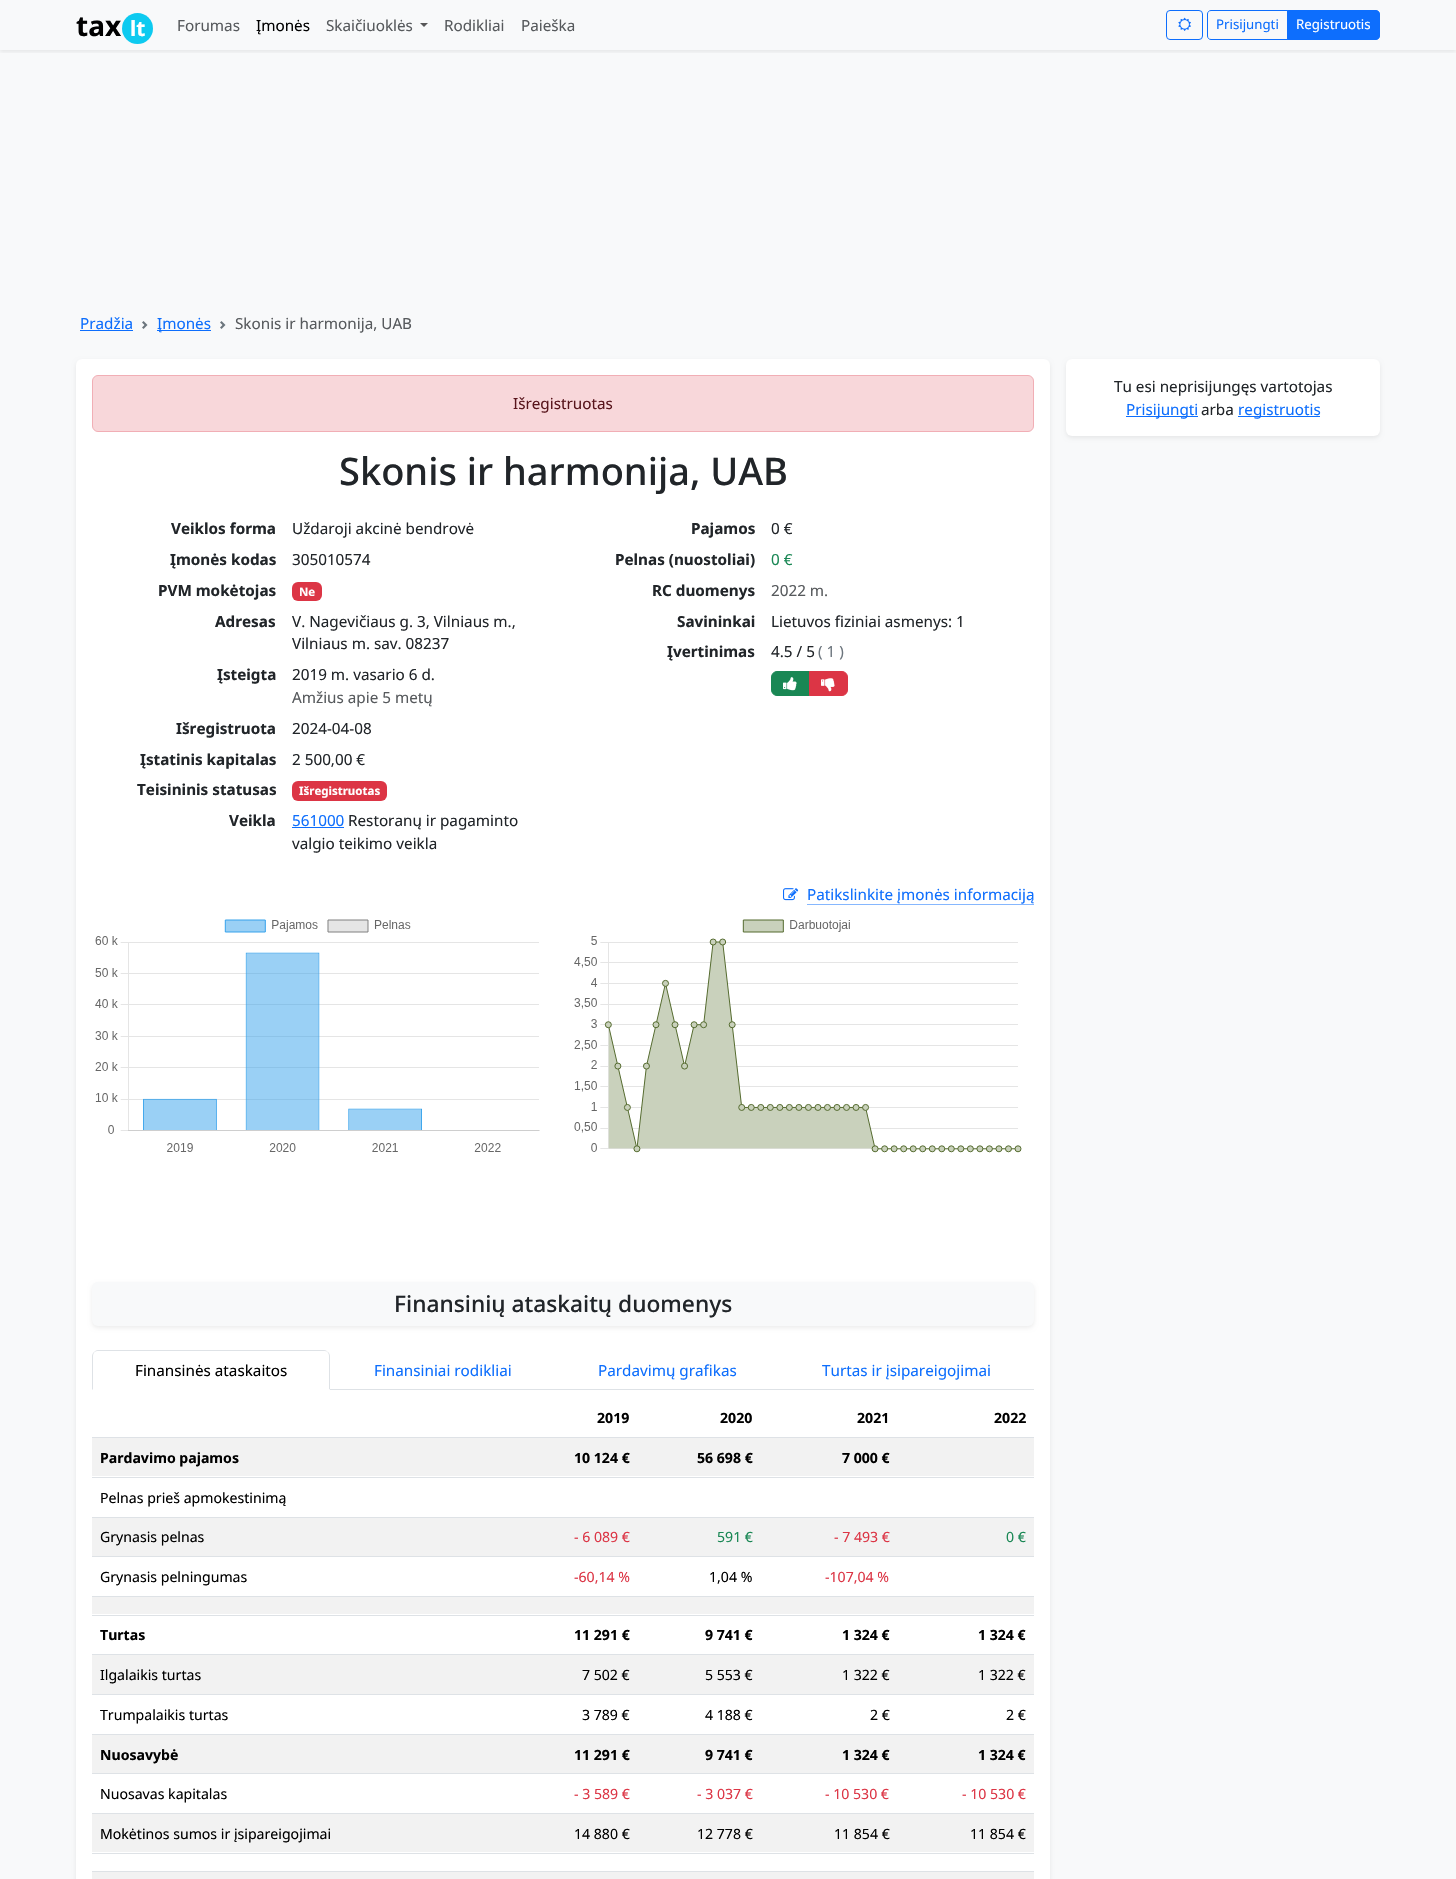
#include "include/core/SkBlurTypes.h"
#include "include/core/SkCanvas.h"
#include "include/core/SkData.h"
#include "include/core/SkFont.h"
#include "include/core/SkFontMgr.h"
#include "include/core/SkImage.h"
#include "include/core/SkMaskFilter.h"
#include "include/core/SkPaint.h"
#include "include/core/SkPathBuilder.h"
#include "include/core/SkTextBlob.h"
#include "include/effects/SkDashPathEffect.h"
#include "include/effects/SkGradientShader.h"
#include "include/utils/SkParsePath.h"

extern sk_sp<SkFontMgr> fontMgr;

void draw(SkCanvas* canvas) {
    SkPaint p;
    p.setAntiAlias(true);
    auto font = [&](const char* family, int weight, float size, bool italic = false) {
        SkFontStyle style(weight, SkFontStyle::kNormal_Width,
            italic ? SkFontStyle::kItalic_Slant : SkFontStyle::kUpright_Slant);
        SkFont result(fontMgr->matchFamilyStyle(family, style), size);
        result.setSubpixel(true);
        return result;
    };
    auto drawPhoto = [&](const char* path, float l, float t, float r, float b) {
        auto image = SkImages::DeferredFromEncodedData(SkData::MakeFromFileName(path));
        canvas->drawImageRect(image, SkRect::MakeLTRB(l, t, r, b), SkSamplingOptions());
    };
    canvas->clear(0xFFF8F9FA);
    canvas->save();
    canvas->clipRect(SkRect::MakeLTRB(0, 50, 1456, 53));
    p.setColor(0x12000000);
    p.setMaskFilter(SkMaskFilter::MakeBlur(kNormal_SkBlurStyle, 2));
    canvas->drawRect(SkRect::MakeLTRB(0, 2, 1456, 52), p);
    p.setMaskFilter(nullptr);
    canvas->restore();
    auto font1 = font("Noto Sans", 700, 28);
    p.setColor(0xFF000000);
    canvas->drawString("tax", 76, 36, font1, p);
    p.setColor(0xFF0DCAF0);
    canvas->drawCircle(137.5f, 28.5f, 15.5f, p);
    auto font2 = font("Noto Sans", 700, 21);
    p.setColor(0xFFFFFFFF);
    canvas->drawString("lt", 130, 36, font2, p);
    auto font3 = font("Noto Sans", 400, 15.25f);
    p.setColor(0xFF575A5D);
    canvas->drawString("Forumas", 177, 31, font3, p);
    p.setColor(0xFF000000);
    canvas->drawString("Įmonės", 256, 31, font3, p);
    p.setColor(0xFF575A5D);
    canvas->drawString("Skaičiuoklės", 326, 31, font3, p);
    p.setColor(0xFF575758);
    canvas->drawPath(SkPathBuilder().moveTo(420, 23).lineTo(428, 23).lineTo(424, 27).close().detach(), p);
    p.setColor(0xFF575A5D);
    canvas->drawString("Rodikliai", 444, 31, font3, p);
    canvas->drawString("Paieška", 521, 31, font3, p);
    p.setStyle(SkPaint::kStroke_Style);
    p.setStrokeWidth(1);
    p.setColor(0xFF0D6EFD);
    canvas->drawRoundRect(SkRect::MakeLTRB(1166.5f, 10.5f, 1202.5f, 39.5f), 3.5f, 3.5f, p);
    drawPhoto("media/1.png", 1178, 17, 1191, 31);
    canvas->drawPath(SkPathBuilder().moveTo(1211, 10.5f).lineTo(1287.5f, 10.5f).lineTo(1287.5f, 39.5f).lineTo(1211, 39.5f).cubicTo(1209, 39.5f, 1207.5f, 38, 1207.5f, 36).lineTo(1207.5f, 14).cubicTo(1207.5f, 12, 1209, 10.5f, 1211, 10.5f).close().detach(), p);
    auto font4 = font("Noto Sans", 400, 13.25f);
    p.setStyle(SkPaint::kFill_Style);
    canvas->drawString("Prisijungti", 1216, 29, font4, p);
    canvas->drawPath(SkPathBuilder().moveTo(1287.5f, 10.5f).lineTo(1376, 10.5f).cubicTo(1378, 10.5f, 1379.5f, 12, 1379.5f, 14).lineTo(1379.5f, 36).cubicTo(1379.5f, 38, 1378, 39.5f, 1376, 39.5f).lineTo(1287.5f, 39.5f).close().detach(), p);
    p.setStyle(SkPaint::kStroke_Style);
    canvas->drawPath(SkPathBuilder().moveTo(1287.5f, 10.5f).lineTo(1376, 10.5f).cubicTo(1378, 10.5f, 1379.5f, 12, 1379.5f, 14).lineTo(1379.5f, 36).cubicTo(1379.5f, 38, 1378, 39.5f, 1376, 39.5f).lineTo(1287.5f, 39.5f).close().detach(), p);
    p.setStyle(SkPaint::kFill_Style);
    p.setColor(0xFFFFFFFF);
    canvas->drawString("Registruotis", 1296, 29, font4, p);
    p.setColor(0xFF0D6EFD);
    canvas->drawString("Pradžia", 80, 329, font3, p);
    canvas->drawRect(SkRect::MakeLTRB(80, 330, 133, 331), p);
    drawPhoto("media/2.png", 142, 321, 148, 329);
    canvas->drawRect(SkRect::MakeLTRB(157, 330, 211, 331), p);
    canvas->drawString("Įmonės", 157, 329, font3, p);
    drawPhoto("media/2.png", 220, 321, 226, 329);
    p.setColor(0xFF575A5D);
    canvas->drawString("Skonis ir harmonija, UAB", 235, 329, font3, p);
    p.setColor(0x12000000);
    p.setMaskFilter(SkMaskFilter::MakeBlur(kNormal_SkBlurStyle, 2));
    canvas->drawRoundRect(SkRect::MakeLTRB(76, 361, 1050, 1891), 6, 6, p);
    p.setMaskFilter(nullptr);
    p.setColor(0xFFFFFFFF);
    canvas->drawRoundRect(SkRect::MakeLTRB(76, 359, 1050, 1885), 6, 6, p);
    p.setColor(0xFFF8D7DA);
    canvas->drawRoundRect(SkRect::MakeLTRB(92.5f, 375.5f, 1033.5f, 431.5f), 5.5f, 5.5f, p);
    p.setStyle(SkPaint::kStroke_Style);
    p.setColor(0xFFF1AEB5);
    canvas->drawRoundRect(SkRect::MakeLTRB(92.5f, 375.5f, 1033.5f, 431.5f), 5.5f, 5.5f, p);
    p.setStyle(SkPaint::kFill_Style);
    p.setColor(0xFF58151C);
    canvas->drawString("Išregistruotas", 513, 409, font3, p);
    auto font5 = font("Noto Sans", 500, 38);
    p.setColor(0xFF212529);
    canvas->drawString("Skonis ir harmonija, UAB", 339, 485, font5, p);
    auto font6 = font("Noto Sans", 700, 15.25f);
    canvas->drawString("Veiklos forma", 171, 534, font6, p);
    canvas->drawString("Uždaroji akcinė bendrovė", 292, 534, font3, p);
    canvas->drawString("Įmonės kodas", 170, 565, font6, p);
    canvas->drawString("305010574", 292, 565, font3, p);
    canvas->drawString("PVM mokėtojas", 158, 596, font6, p);
    p.setColor(0xFFDC3545);
    canvas->drawRoundRect(SkRect::MakeLTRB(292, 582, 322, 601), 6, 6, p);
    auto font7 = font("Noto Sans", 700, 11.5f);
    p.setColor(0xFFFFFFFF);
    canvas->drawString("Ne", 299, 596, font7, p);
    p.setColor(0xFF212529);
    canvas->drawString("Adresas", 215, 627, font6, p);
    canvas->drawString("V. Nagevičiaus g. 3, Vilniaus m.,", 292, 627, font3, p);
    canvas->drawString("Vilniaus m. sav. 08237", 292, 649, font3, p);
    canvas->drawString("Įsteigta", 217, 680, font6, p);
    canvas->drawString("2019 m. vasario 6 d.", 292, 680, font3, p);
    p.setColor(0xFF575A5D);
    canvas->drawString("Amžius apie 5 metų", 292, 703, font3, p);
    p.setColor(0xFF212529);
    canvas->drawString("Išregistruota", 176, 734, font6, p);
    canvas->drawString("2024-04-08", 292, 734, font3, p);
    canvas->drawString("Įstatinis kapitalas", 140, 765, font6, p);
    canvas->drawString("2 500,00 €", 292, 765, font3, p);
    canvas->drawString("Teisininis statusas", 137, 795, font6, p);
    p.setColor(0xFFDC3545);
    canvas->drawRoundRect(SkRect::MakeLTRB(292, 781, 387, 801), 6, 6, p);
    p.setColor(0xFFFFFFFF);
    canvas->drawString("Išregistruotas", 299, 795, font7, p);
    p.setColor(0xFF212529);
    canvas->drawString("Veikla", 229, 826, font6, p);
    p.setColor(0xFF0D6EFD);
    canvas->drawString("561000", 292, 826, font3, p);
    canvas->drawRect(SkRect::MakeLTRB(292, 827, 344, 828), p);
    p.setColor(0xFF212529);
    canvas->drawString("Restoranų ir pagaminto", 348, 826, font3, p);
    canvas->drawString("valgio teikimo veikla", 292, 849, font3, p);
    canvas->drawString("Pajamos", 691, 534, font6, p);
    canvas->drawString("0 €", 771, 534, font3, p);
    canvas->drawString("Pelnas (nuostoliai)", 615, 565, font6, p);
    p.setColor(0xFF198754);
    canvas->drawString("0 €", 771, 565, font3, p);
    p.setColor(0xFF212529);
    canvas->drawString("RC duomenys", 652, 596, font6, p);
    p.setColor(0xFF575A5D);
    canvas->drawString("2022 m.", 771, 596, font3, p);
    p.setColor(0xFF212529);
    canvas->drawString("Savininkai", 677, 627, font6, p);
    canvas->drawString("Lietuvos fiziniai asmenys: 1", 771, 627, font3, p);
    canvas->drawString("Įvertinimas", 667, 657, font6, p);
    canvas->drawString("4.5 / 5", 771, 657, font3, p);
    p.setColor(0xFF6C757D);
    canvas->drawString("( 1 )", 818, 657, font3, p);
    p.setColor(0xFF198754);
    canvas->drawPath(SkPathBuilder().moveTo(777, 671.5f).lineTo(809.5f, 671.5f).lineTo(809.5f, 695.5f).lineTo(777, 695.5f).cubicTo(774, 695.5f, 771.5f, 693, 771.5f, 690).lineTo(771.5f, 677).cubicTo(771.5f, 674, 774, 671.5f, 777, 671.5f).close().detach(), p);
    p.setStyle(SkPaint::kStroke_Style);
    canvas->drawPath(SkPathBuilder().moveTo(777, 671.5f).lineTo(809.5f, 671.5f).lineTo(809.5f, 695.5f).lineTo(777, 695.5f).cubicTo(774, 695.5f, 771.5f, 693, 771.5f, 690).lineTo(771.5f, 677).cubicTo(771.5f, 674, 774, 671.5f, 777, 671.5f).close().detach(), p);
    drawPhoto("media/3.png", 783, 677, 797, 691);
    p.setStyle(SkPaint::kFill_Style);
    p.setColor(0xFFDC3545);
    canvas->drawPath(SkPathBuilder().moveTo(809.5f, 671.5f).lineTo(842, 671.5f).cubicTo(845, 671.5f, 847.5f, 674, 847.5f, 677).lineTo(847.5f, 690).cubicTo(847.5f, 693, 845, 695.5f, 842, 695.5f).lineTo(809.5f, 695.5f).close().detach(), p);
    p.setStyle(SkPaint::kStroke_Style);
    canvas->drawPath(SkPathBuilder().moveTo(809.5f, 671.5f).lineTo(842, 671.5f).cubicTo(845, 671.5f, 847.5f, 674, 847.5f, 677).lineTo(847.5f, 690).cubicTo(847.5f, 693, 845, 695.5f, 842, 695.5f).lineTo(809.5f, 695.5f).close().detach(), p);
    drawPhoto("media/4.png", 821, 678, 835, 692);
    drawPhoto("media/5.png", 783, 888, 799, 901);
    p.setStyle(SkPaint::kFill_Style);
    p.setColor(0xFF0D6EFD);
    canvas->drawString("Patikslinkite įmonės informaciją", 807, 900, font3, p);
    p.setColor(0xFF86B7FE);
    canvas->drawRect(SkRect::MakeLTRB(807, 904, 1034, 905), p);
    drawPhoto("media/6.png", 95, 919, 540, 1152);
    drawPhoto("media/7.png", 574, 919, 1022, 1153);
    p.setColor(0x12000000);
    p.setMaskFilter(SkMaskFilter::MakeBlur(kNormal_SkBlurStyle, 2));
    canvas->drawRoundRect(SkRect::MakeLTRB(92, 1284, 1034, 1328), 6, 6, p);
    p.setMaskFilter(nullptr);
    p.setColor(0xFFF8F9FA);
    canvas->drawRoundRect(SkRect::MakeLTRB(92, 1282, 1034, 1326), 6, 6, p);
    auto font8 = font("Noto Sans", 500, 22.75f);
    p.setColor(0xFF212529);
    canvas->drawString("Finansinių ataskaitų duomenys", 394, 1312, font8, p);
    p.setColor(0xFFDEE2E6);
    canvas->drawRect(SkRect::MakeLTRB(330, 1389, 1034, 1390), p);
    canvas->drawPath(SkPathBuilder().moveTo(98, 1350).cubicTo(96, 1350, 95, 1351, 94, 1352).lineTo(97, 1351).lineTo(324, 1351).cubicTo(325, 1351, 327, 1351, 328, 1352).cubicTo(327, 1351, 326, 1350, 324, 1350).close().detach(), p);
    canvas->drawPath(SkPathBuilder().moveTo(330, 1390).lineTo(330, 1356).cubicTo(330, 1354.5f, 329, 1353, 328, 1352).lineTo(327.5f, 1352.5f).cubicTo(328.5f, 1353, 329, 1354.5f, 329, 1356).lineTo(329, 1389).close().detach(), p);
    p.setColor(0xFFFFFFFF);
    canvas->drawPath(SkPathBuilder().moveTo(330, 1390).lineTo(329, 1389).lineTo(93, 1389).lineTo(92, 1390).close().detach(), p);
    p.setColor(0xFFDEE2E6);
    canvas->drawPath(SkPathBuilder().moveTo(92, 1390).lineTo(93, 1389).lineTo(93, 1356).cubicTo(93, 1354.5f, 93.5f, 1353, 94.5f, 1352.5f).lineTo(94, 1352).cubicTo(93, 1353, 92, 1354.5f, 92, 1356).close().detach(), p);
    p.setColor(0xFF000000);
    canvas->drawString("Finansinės ataskaitos", 135, 1376, font3, p);
    p.setColor(0xFF0D6EFD);
    {
        const struct { const char* s; float x, y; } items[] = {
            {"Finansiniai rodikliai", 374, 1376},
            {"Pardavimų grafikas", 598, 1376},
            {"Turtas ir įsipareigojimai", 822, 1376},
        };
        for (auto [s, x, y] : items) {
            canvas->drawString(s, x, y, font3, p);
        }
    }
    auto font9 = font("Noto Sans", 700, 14.1f);
    p.setColor(0xFF000000);
    {
        const struct { const char* s; float x, y; } items[] = {
            {"2019", 597, 1423},
            {"2020", 720, 1423},
            {"2021", 857, 1423},
        };
        for (auto [s, x, y] : items) {
            canvas->drawString(s, x, y, font9, p);
        }
    }
    p.setColor(0xFFDEE2E6);
    canvas->drawRect(SkRect::MakeLTRB(92, 1437, 1034, 1438), p);
    p.setColor(0xFF000000);
    canvas->drawString("2022", 994, 1423, font9, p);
    p.setColor(0xFFF2F2F2);
    canvas->drawRect(SkRect::MakeLTRB(92, 1438, 1034, 1476), p);
    p.setColor(0xFF000000);
    {
        const struct { const char* s; float x, y; } items[] = {
            {"Pardavimo pajamos", 100, 1463},
            {"10 124 €", 574, 1463},
            {"56 698 €", 697, 1463},
            {"7 000 €", 842, 1463},
        };
        for (auto [s, x, y] : items) {
            canvas->drawString(s, x, y, font9, p);
        }
    }
    p.setColor(0xFFDEE2E6);
    canvas->drawRect(SkRect::MakeLTRB(92, 1477, 1034, 1478), p);
    auto font10 = font("Noto Sans", 400, 14.1f);
    p.setColor(0xFF000000);
    canvas->drawString("Pelnas prieš apmokestinimą", 100, 1503, font10, p);
    p.setColor(0xFFDEE2E6);
    canvas->drawRect(SkRect::MakeLTRB(92, 1517, 1034, 1518), p);
    p.setColor(0xFFF2F2F2);
    canvas->drawRect(SkRect::MakeLTRB(92, 1518, 1034, 1556), p);
    p.setColor(0xFF000000);
    canvas->drawString("Grynasis pelnas", 100, 1542, font10, p);
    p.setColor(0xFFDC3545);
    canvas->drawString("- 6 089 €", 574, 1542, font10, p);
    p.setColor(0xFF198754);
    canvas->drawString("591 €", 717, 1542, font10, p);
    p.setColor(0xFFDC3545);
    canvas->drawString("- 7 493 €", 834, 1542, font10, p);
    p.setColor(0xFFDEE2E6);
    canvas->drawRect(SkRect::MakeLTRB(92, 1556, 1034, 1557), p);
    p.setColor(0xFF198754);
    canvas->drawString("0 €", 1006, 1542, font10, p);
    p.setColor(0xFF000000);
    canvas->drawString("Grynasis pelningumas", 100, 1582, font10, p);
    p.setColor(0xFFDC3545);
    canvas->drawString("-60,14 %", 574, 1582, font10, p);
    p.setColor(0xFF000000);
    canvas->drawString("1,04 %", 709, 1582, font10, p);
    p.setColor(0xFFDC3545);
    canvas->drawString("-107,04 %", 825, 1582, font10, p);
    {
        const struct { float l, t, r, b; SkColor color; } items[] = {
            {92, 1596, 1034, 1597, 0xFFDEE2E6},
            {92, 1597, 1034, 1614, 0xFFF2F2F2},
            {92, 1615, 1034, 1616, 0xFFDEE2E6},
        };
        for (auto [l, t, r, b, color] : items) {
            p.setColor(color);
            canvas->drawRect(SkRect::MakeLTRB(l, t, r, b), p);
        }
    }
    p.setColor(0xFF000000);
    {
        const struct { const char* s; float x, y; } items[] = {
            {"Turtas", 100, 1640},
            {"11 291 €", 574, 1640},
            {"9 741 €", 705, 1640},
            {"1 324 €", 842, 1640},
        };
        for (auto [s, x, y] : items) {
            canvas->drawString(s, x, y, font9, p);
        }
    }
    p.setColor(0xFFDEE2E6);
    canvas->drawRect(SkRect::MakeLTRB(92, 1654, 1034, 1655), p);
    p.setColor(0xFF000000);
    canvas->drawString("1 324 €", 978, 1640, font9, p);
    p.setColor(0xFFF2F2F2);
    canvas->drawRect(SkRect::MakeLTRB(92, 1655, 1034, 1694), p);
    p.setColor(0xFF000000);
    {
        const struct { const char* s; float x, y; } items[] = {
            {"Ilgalaikis turtas", 100, 1680},
            {"7 502 €", 582, 1680},
            {"5 553 €", 705, 1680},
            {"1 322 €", 842, 1680},
        };
        for (auto [s, x, y] : items) {
            canvas->drawString(s, x, y, font10, p);
        }
    }
    p.setColor(0xFFDEE2E6);
    canvas->drawRect(SkRect::MakeLTRB(92, 1694, 1034, 1695), p);
    p.setColor(0xFF000000);
    {
        const struct { const char* s; float x, y; } items[] = {
            {"1 322 €", 978, 1680},
            {"Trumpalaikis turtas", 100, 1720},
            {"3 789 €", 582, 1720},
            {"4 188 €", 705, 1720},
            {"2 €", 870, 1720},
        };
        for (auto [s, x, y] : items) {
            canvas->drawString(s, x, y, font10, p);
        }
    }
    p.setColor(0xFFDEE2E6);
    canvas->drawRect(SkRect::MakeLTRB(92, 1734, 1034, 1735), p);
    p.setColor(0xFF000000);
    canvas->drawString("2 €", 1006, 1720, font10, p);
    p.setColor(0xFFF2F2F2);
    canvas->drawRect(SkRect::MakeLTRB(92, 1735, 1034, 1773), p);
    p.setColor(0xFF000000);
    {
        const struct { const char* s; float x, y; } items[] = {
            {"Nuosavybė", 100, 1760},
            {"11 291 €", 574, 1760},
            {"9 741 €", 705, 1760},
            {"1 324 €", 842, 1760},
        };
        for (auto [s, x, y] : items) {
            canvas->drawString(s, x, y, font9, p);
        }
    }
    p.setColor(0xFFDEE2E6);
    canvas->drawRect(SkRect::MakeLTRB(92, 1773, 1034, 1774), p);
    p.setColor(0xFF000000);
    canvas->drawString("1 324 €", 978, 1760, font9, p);
    canvas->drawString("Nuosavas kapitalas", 100, 1799, font10, p);
    p.setColor(0xFFDC3545);
    {
        const struct { const char* s; float x, y; } items[] = {
            {"- 3 589 €", 574, 1799},
            {"- 3 037 €", 697, 1799},
            {"- 10 530 €", 825, 1799},
        };
        for (auto [s, x, y] : items) {
            canvas->drawString(s, x, y, font10, p);
        }
    }
    p.setColor(0xFFDEE2E6);
    canvas->drawRect(SkRect::MakeLTRB(92, 1813, 1034, 1814), p);
    p.setColor(0xFFDC3545);
    canvas->drawString("- 10 530 €", 962, 1799, font10, p);
    p.setColor(0xFFF2F2F2);
    canvas->drawRect(SkRect::MakeLTRB(92, 1814, 1034, 1852), p);
    p.setColor(0xFF000000);
    {
        const struct { const char* s; float x, y; } items[] = {
            {"Mokėtinos sumos ir įsipareigojimai", 100, 1839},
            {"14 880 €", 574, 1839},
            {"12 778 €", 697, 1839},
            {"11 854 €", 834, 1839},
        };
        for (auto [s, x, y] : items) {
            canvas->drawString(s, x, y, font10, p);
        }
    }
    p.setColor(0xFFDEE2E6);
    canvas->drawRect(SkRect::MakeLTRB(92, 1853, 1034, 1854), p);
    p.setColor(0xFF000000);
    canvas->drawString("11 854 €", 970, 1839, font10, p);
    p.setColor(0xFFDEE2E6);
    canvas->drawRect(SkRect::MakeLTRB(92, 1871, 1034, 1872), p);
    p.setColor(0xFFF2F2F2);
    canvas->drawRect(SkRect::MakeLTRB(92, 1872, 1034, 1879), p);
    p.setColor(0x12000000);
    p.setMaskFilter(SkMaskFilter::MakeBlur(kNormal_SkBlurStyle, 2));
    canvas->drawRoundRect(SkRect::MakeLTRB(1066, 361, 1380, 438), 6, 6, p);
    p.setMaskFilter(nullptr);
    p.setColor(0xFFFFFFFF);
    canvas->drawRoundRect(SkRect::MakeLTRB(1066, 359, 1380, 436), 6, 6, p);
    p.setColor(0xFF212529);
    canvas->drawString("Tu esi neprisijungęs vartotojas", 1114, 392, font3, p);
    p.setColor(0xFF0D6EFD);
    canvas->drawRect(SkRect::MakeLTRB(1126, 416, 1198, 417), p);
    canvas->drawString("Prisijungti", 1126, 415, font3, p);
    p.setColor(0xFF212529);
    canvas->drawString("arba", 1201, 415, font3, p);
    p.setColor(0xFF0D6EFD);
    canvas->drawRect(SkRect::MakeLTRB(1238, 416, 1320, 417), p);
    canvas->drawString("registruotis", 1238, 415, font3, p);
}
